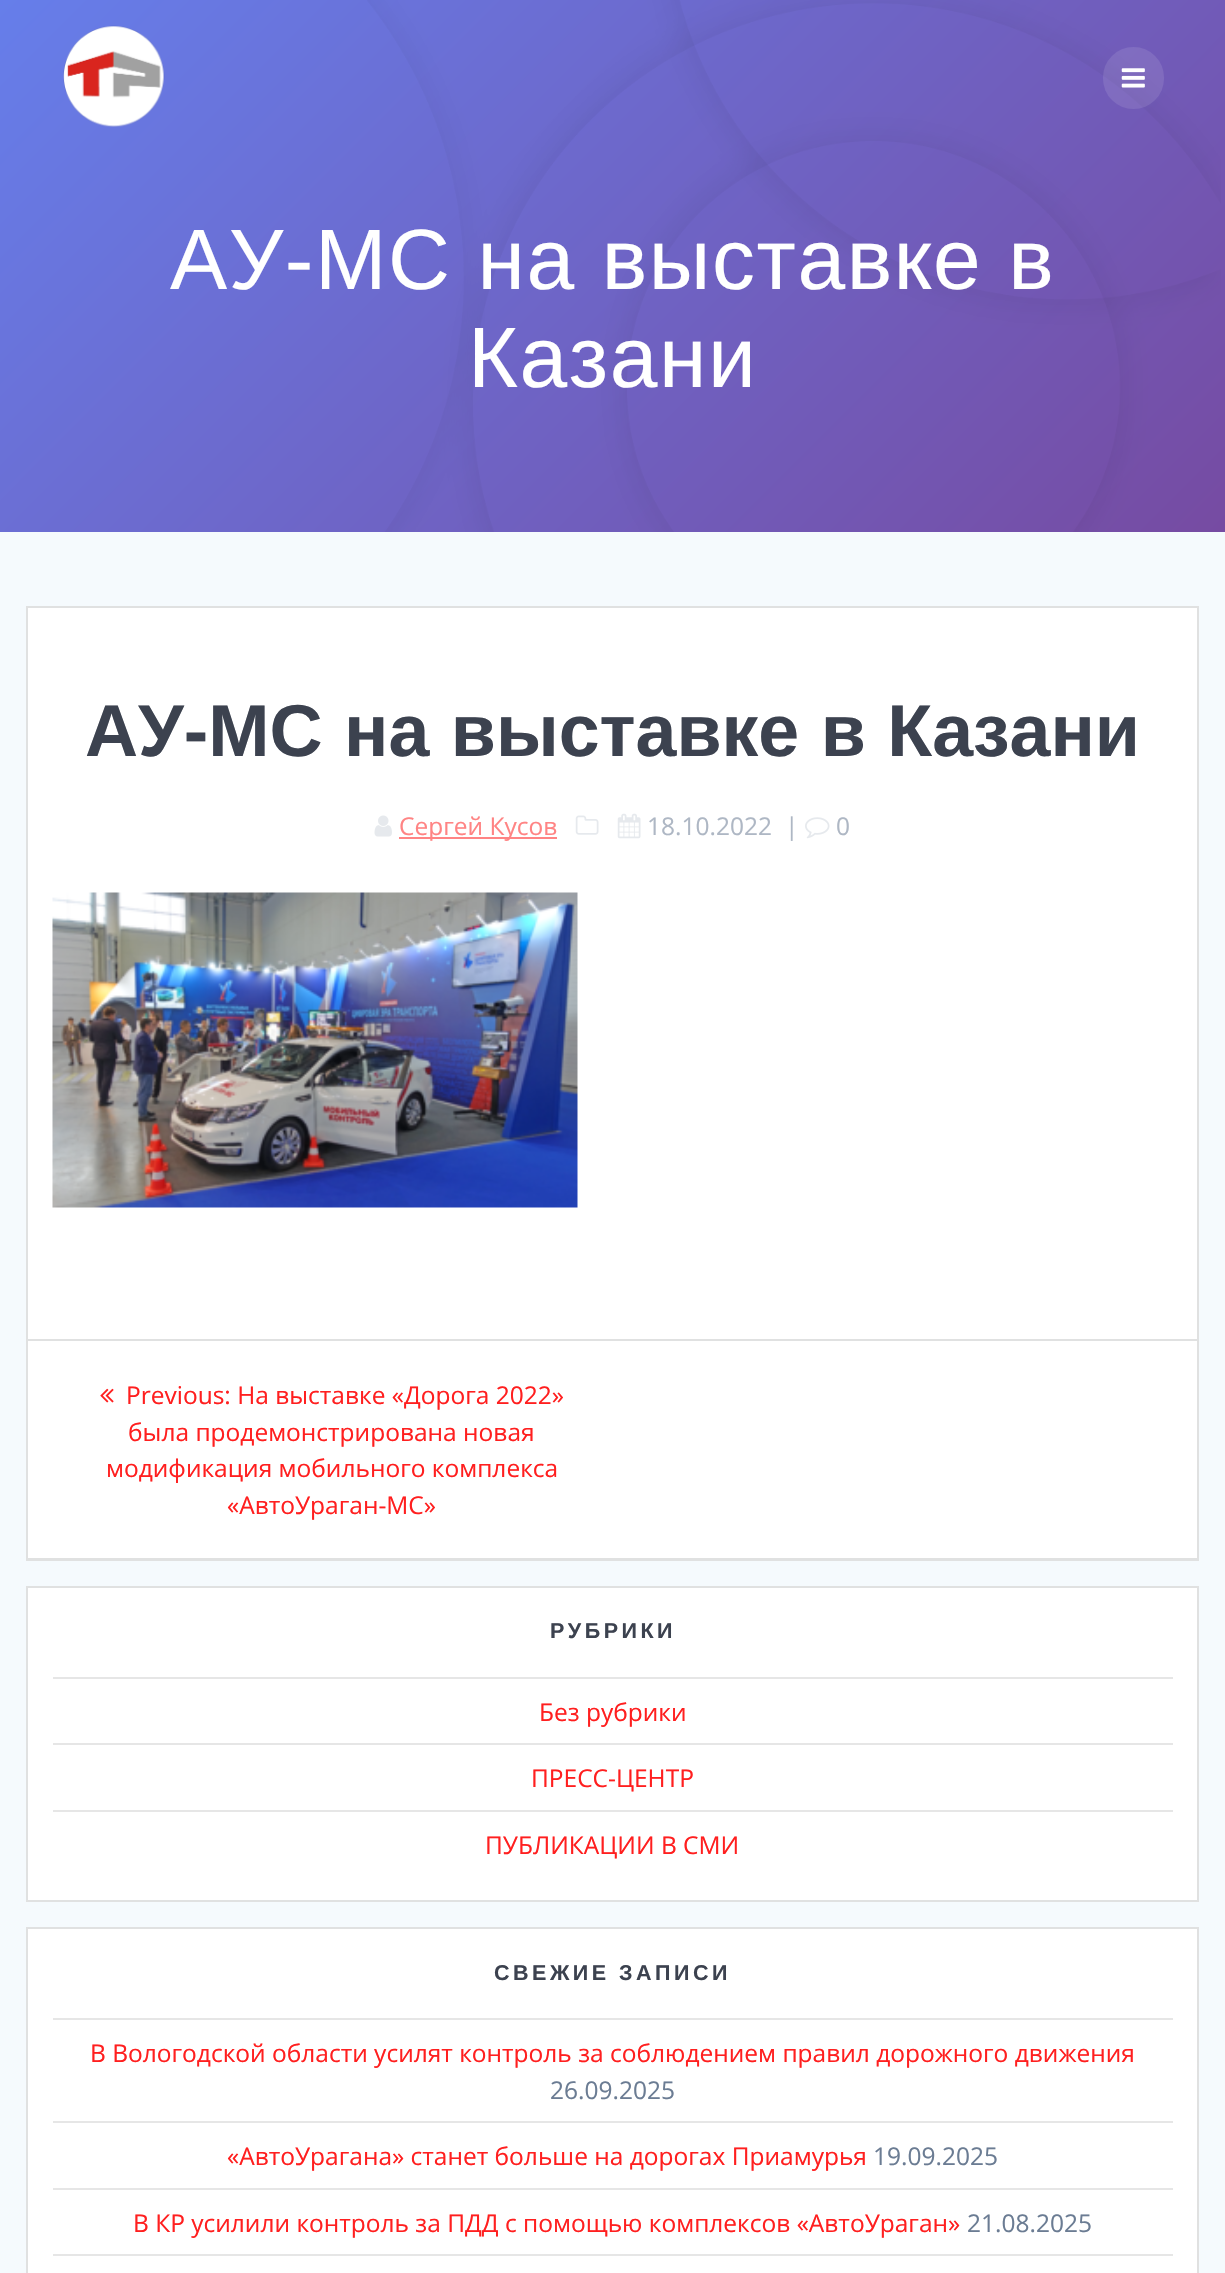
#include "include/core/SkBlurTypes.h"
#include "include/core/SkCanvas.h"
#include "include/core/SkData.h"
#include "include/core/SkFont.h"
#include "include/core/SkFontMgr.h"
#include "include/core/SkImage.h"
#include "include/core/SkMaskFilter.h"
#include "include/core/SkPaint.h"
#include "include/core/SkPathBuilder.h"
#include "include/core/SkTextBlob.h"
#include "include/effects/SkDashPathEffect.h"
#include "include/effects/SkGradientShader.h"
#include "include/utils/SkParsePath.h"

extern sk_sp<SkFontMgr> fontMgr;

void draw(SkCanvas* canvas) {
    SkPaint p;
    p.setAntiAlias(true);
    auto font = [&](const char* family, int weight, float size, bool italic = false) {
        SkFontStyle style(weight, SkFontStyle::kNormal_Width,
            italic ? SkFontStyle::kItalic_Slant : SkFontStyle::kUpright_Slant);
        SkFont result(fontMgr->matchFamilyStyle(family, style), size);
        result.setSubpixel(true);
        return result;
    };
    auto drawTracked = [&](const char* s, float x, float y, const SkFont& font, const SkPaint& ink, float letter, float word) {
        std::vector<SkGlyphID> glyphs(font.countText(s, strlen(s), SkTextEncoding::kUTF8));
        std::vector<float> xs(glyphs.size());
        font.textToGlyphs(s, strlen(s), SkTextEncoding::kUTF8, glyphs);
        font.getXPos(glyphs, xs, x);
        float extra = 0;
        for (size_t i = 0; i < glyphs.size(); i++) {
            xs[i] += extra;
            extra += letter + word * (glyphs[i] == font.unicharToGlyph(' '));
        }
        canvas->drawTextBlob(SkTextBlob::MakeFromPosHGlyphs(glyphs, xs, y, font), 0, 0, ink);
    };
    auto drawPhoto = [&](const char* path, float l, float t, float r, float b) {
        auto image = SkImages::DeferredFromEncodedData(SkData::MakeFromFileName(path));
        canvas->drawImageRect(image, SkRect::MakeLTRB(l, t, r, b), SkSamplingOptions());
    };
    canvas->clear(0xFFFFFFFF);
    {
        const SkColor colors[] = {0xFF667EEA, 0xFF764BA2};
        const float stops[] = {0, 1};
        const SkPoint ends[] = {{173, -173}, {1052, 705}};
        p.setShader(SkGradientShader::MakeLinear(ends, colors, stops, 2, SkTileMode::kClamp));
        p.setAlpha(255);
    }
    canvas->drawRect(SkRect::MakeLTRB(0, 0, 1225, 532), p);
    drawPhoto("media/1.png", 63, 25, 165, 127);
    drawPhoto("media/3.png", 367, 0, 1221, 532);
    p.setShader(nullptr);
    p.setColor(0x1AFFFFFF);
    canvas->drawRoundRect(SkRect::MakeLTRB(1103, 47, 1164, 109), 30.5f, 30.5f, p);
    drawPhoto("media/2.png", 1121, 68, 1145, 88);
    auto font1 = font("Liberation Sans", 400, 85.75f);
    p.setColor(0xFFFFFFFF);
    drawTracked("АУ-МС на выставке в", 170, 289, font1, p, 1.6f, 0.5f);
    drawTracked("Казани", 468, 387, font1, p, 1.6f, 0);
    p.setColor(0xFFF5FAFD);
    canvas->drawRect(SkRect::MakeLTRB(0, 532, 1225, 2273), p);
    p.setColor(0xFFFFFFFF);
    canvas->drawRect(SkRect::MakeLTRB(28, 608, 1197, 1558), p);
    p.setStyle(SkPaint::kStroke_Style);
    p.setStrokeWidth(2);
    p.setColor(0xFFE0E1E1);
    canvas->drawRect(SkRect::MakeLTRB(27, 607, 1198, 1560), p);
    auto font2 = font("Liberation Sans", 700, 73.5f);
    p.setStyle(SkPaint::kFill_Style);
    p.setColor(0xFF3C424F);
    drawTracked("АУ-МС на выставке в Казани", 85, 756, font2, p, 0, 1);
    drawPhoto("media/4.png", 374, 815, 392, 837);
    p.setColor(0xFFFF8484);
    canvas->drawRect(SkRect::MakeLTRB(399, 837, 557, 839), p);
    auto font3 = font("Open Sans", 400, 24.5f);
    canvas->drawString("Сергей Кусов", 399, 835, font3, p);
    drawPhoto("media/5.png", 575, 815, 599, 835);
    drawPhoto("media/6.png", 617, 813, 641, 839);
    p.setColor(0xFFAEB7C4);
    canvas->drawString("18.10.2022", 647, 835, font3, p);
    canvas->drawString("|", 785, 835, font3, p);
    drawPhoto("media/7.png", 805, 817, 830, 839);
    canvas->drawString("0", 836, 835, font3, p);
    drawPhoto("media/8.png", 52, 892, 578, 1208);
    p.setColor(0xFFE0E1E1);
    canvas->drawRect(SkRect::MakeLTRB(28, 1339, 1197, 1341), p);
    canvas->drawRect(SkRect::MakeLTRB(28, 1558, 1197, 1559), p);
    drawPhoto("media/9.png", 100, 1388, 114, 1403);
    p.setColor(0xFFFF1F1F);
    {
        const struct { const char* s; float x, y; } items[] = {
            {"Previous: На выставке «Дорога 2022»", 126, 1404},
            {"была продемонстрирована новая", 128, 1441},
            {"модификация мобильного комплекса", 106, 1477},
            {"«АвтоУраган-МС»", 227, 1514},
        };
        for (auto [s, x, y] : items) {
            canvas->drawString(s, x, y, font3, p);
        }
    }
    p.setColor(0xFFFFFFFF);
    canvas->drawRect(SkRect::MakeLTRB(27, 1587, 1198, 1901), p);
    p.setStyle(SkPaint::kStroke_Style);
    p.setColor(0xFFE0E1E1);
    canvas->drawRect(SkRect::MakeLTRB(27, 1587, 1198, 1901), p);
    auto font4 = font("Liberation Sans", 700, 21.5f);
    p.setStyle(SkPaint::kFill_Style);
    p.setColor(0xFF3C424F);
    drawTracked("РУБРИКИ", 550, 1638, font4, p, 3.5f, 0);
    p.setColor(0xFFE6E6E6);
    canvas->drawRect(SkRect::MakeLTRB(53, 1677, 1173, 1679), p);
    p.setColor(0xFFFF1F1F);
    canvas->drawString("Без рубрики", 539, 1721, font3, p);
    p.setColor(0xFFE6E6E6);
    canvas->drawRect(SkRect::MakeLTRB(53, 1743, 1173, 1745), p);
    p.setColor(0xFFFF1F1F);
    canvas->drawString("ПРЕСС-ЦЕНТР", 531, 1787, font3, p);
    p.setColor(0xFFE6E6E6);
    canvas->drawRect(SkRect::MakeLTRB(53, 1810, 1173, 1812), p);
    p.setColor(0xFFFF1F1F);
    canvas->drawString("ПУБЛИКАЦИИ В СМИ", 485, 1854, font3, p);
    p.setColor(0xFFFFFFFF);
    canvas->drawRect(SkRect::MakeLTRB(27, 1928, 1198, 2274), p);
    p.setStyle(SkPaint::kStroke_Style);
    p.setColor(0xFFE0E1E1);
    canvas->drawRect(SkRect::MakeLTRB(27, 1928, 1198, 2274), p);
    p.setStyle(SkPaint::kFill_Style);
    p.setColor(0xFF3C424F);
    drawTracked("СВЕЖИЕ ЗАПИСИ", 494, 1980, font4, p, 3.5f, 0);
    p.setColor(0xFFE6E6E6);
    canvas->drawRect(SkRect::MakeLTRB(53, 2018, 1173, 2020), p);
    p.setColor(0xFFFF1F1F);
    canvas->drawString("В Вологодской области усилят контроль за соблюдением правил дорожного движения", 90, 2062, font3, p);
    p.setColor(0xFF6B7C93);
    canvas->drawString("26.09.2025", 550, 2099, font3, p);
    p.setColor(0xFFE6E6E6);
    canvas->drawRect(SkRect::MakeLTRB(53, 2121, 1173, 2123), p);
    p.setColor(0xFFFF1F1F);
    canvas->drawString("«АвтоУрагана» станет больше на дорогах Приамурья", 227, 2165, font3, p);
    p.setColor(0xFF6B7C93);
    canvas->drawString("19.09.2025", 873, 2165, font3, p);
    p.setColor(0xFFE6E6E6);
    canvas->drawRect(SkRect::MakeLTRB(53, 2188, 1173, 2190), p);
    p.setColor(0xFFFF1F1F);
    canvas->drawString("В КР усилили контроль за ПДД с помощью комплексов «АвтоУраган»", 133, 2232, font3, p);
    p.setColor(0xFF6B7C93);
    canvas->drawString("21.08.2025", 967, 2232, font3, p);
    p.setColor(0xFFE6E6E6);
    canvas->drawRect(SkRect::MakeLTRB(53, 2254, 1173, 2256), p);
}
